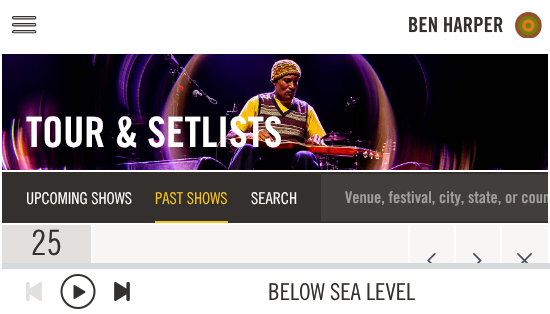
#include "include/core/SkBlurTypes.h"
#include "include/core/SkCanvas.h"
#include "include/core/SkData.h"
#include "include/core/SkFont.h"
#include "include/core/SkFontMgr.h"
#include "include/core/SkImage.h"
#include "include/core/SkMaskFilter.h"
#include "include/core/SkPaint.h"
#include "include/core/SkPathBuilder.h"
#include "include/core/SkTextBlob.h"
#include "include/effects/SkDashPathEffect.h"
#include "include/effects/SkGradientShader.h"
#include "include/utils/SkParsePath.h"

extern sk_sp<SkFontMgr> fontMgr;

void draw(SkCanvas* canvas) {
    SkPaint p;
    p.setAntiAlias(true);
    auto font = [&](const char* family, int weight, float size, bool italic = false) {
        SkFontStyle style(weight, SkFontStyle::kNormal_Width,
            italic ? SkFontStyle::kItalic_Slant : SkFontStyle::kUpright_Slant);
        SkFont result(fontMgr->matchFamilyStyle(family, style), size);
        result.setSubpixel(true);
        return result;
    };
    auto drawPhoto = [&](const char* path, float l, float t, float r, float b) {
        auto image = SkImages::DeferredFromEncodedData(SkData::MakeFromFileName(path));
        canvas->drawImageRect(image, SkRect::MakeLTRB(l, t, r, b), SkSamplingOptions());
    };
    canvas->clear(0xFFFFFFFF);
    drawPhoto("media/1.png", 12, 16, 37, 34);
    drawPhoto("media/2.png", 409, 17, 503, 33);
    drawPhoto("media/3.png", 515, 12, 542, 38);
    p.setColor(0xFFF7F6F5);
    canvas->drawRect(SkRect::MakeLTRB(93, 225, 548, 263), p);
    drawPhoto("media/4.png", 2, 54, 548, 170);
    auto font1 = font("Trade Gothic", 700, 42);
    p.setColor(0xFFFFFFFF);
    canvas->drawString("TOUR & SETLISTS", 26, 147, font1, p);
    p.setColor(0xFF33302E);
    canvas->drawRect(SkRect::MakeLTRB(2, 172, 548, 223), p);
    auto font2 = font("Trade Gothic", 400, 16.3f);
    p.setColor(0xFFFFFFFF);
    canvas->drawString("UPCOMING SHOWS", 26, 204, font2, p);
    p.setColor(0xFFF7C41B);
    canvas->drawString("PAST SHOWS", 155, 204, font2, p);
    canvas->drawRect(SkRect::MakeLTRB(155, 221, 228, 223), p);
    p.setColor(0xFFFFFFFF);
    canvas->drawString("SEARCH", 251, 204, font2, p);
    p.setColor(0xFF423E3C);
    canvas->drawRect(SkRect::MakeLTRB(321, 174, 548, 221), p);
    canvas->save();
    canvas->clipRect(SkRect::MakeLTRB(345, 186, 548, 209));
    auto font3 = font("Trade Gothic", 700, 16.3f);
    p.setColor(0xFF9D9F9A);
    canvas->drawString("Venue, festival, city, state, or coun", 345, 203, font3, p);
    canvas->restore();
    p.setColor(0xFFE3DFDC);
    canvas->drawRect(SkRect::MakeLTRB(2, 225, 91, 263), p);
    auto font4 = font("Trade Gothic", 400, 35);
    p.setColor(0xFF33302E);
    canvas->drawString("25", 31, 255, font4, p);
    drawPhoto("media/5.png", 427, 253, 436, 263);
    p.setColor(0xFFFFFFFF);
    canvas->drawRect(SkRect::MakeLTRB(454, 225, 456, 263), p);
    canvas->drawRect(SkRect::MakeLTRB(408, 225, 410, 263), p);
    drawPhoto("media/6.png", 473, 253, 482, 263);
    canvas->drawRect(SkRect::MakeLTRB(500, 225, 502, 263), p);
    drawPhoto("media/7.png", 517, 253, 532, 263);
    p.setColor(0xFFD6DADD);
    canvas->drawRect(SkRect::MakeLTRB(2, 263, 550, 269), p);
    drawPhoto("media/8.png", 26, 282, 42, 301);
    drawPhoto("media/9.png", 60, 274, 96, 309);
    drawPhoto("media/10.png", 114, 281, 130, 302);
    auto font5 = font("Trade Gothic", 400, 23.25f);
    p.setColor(0xFF33302E);
    canvas->drawString("BELOW SEA LEVEL", 268, 300, font5, p);
}
